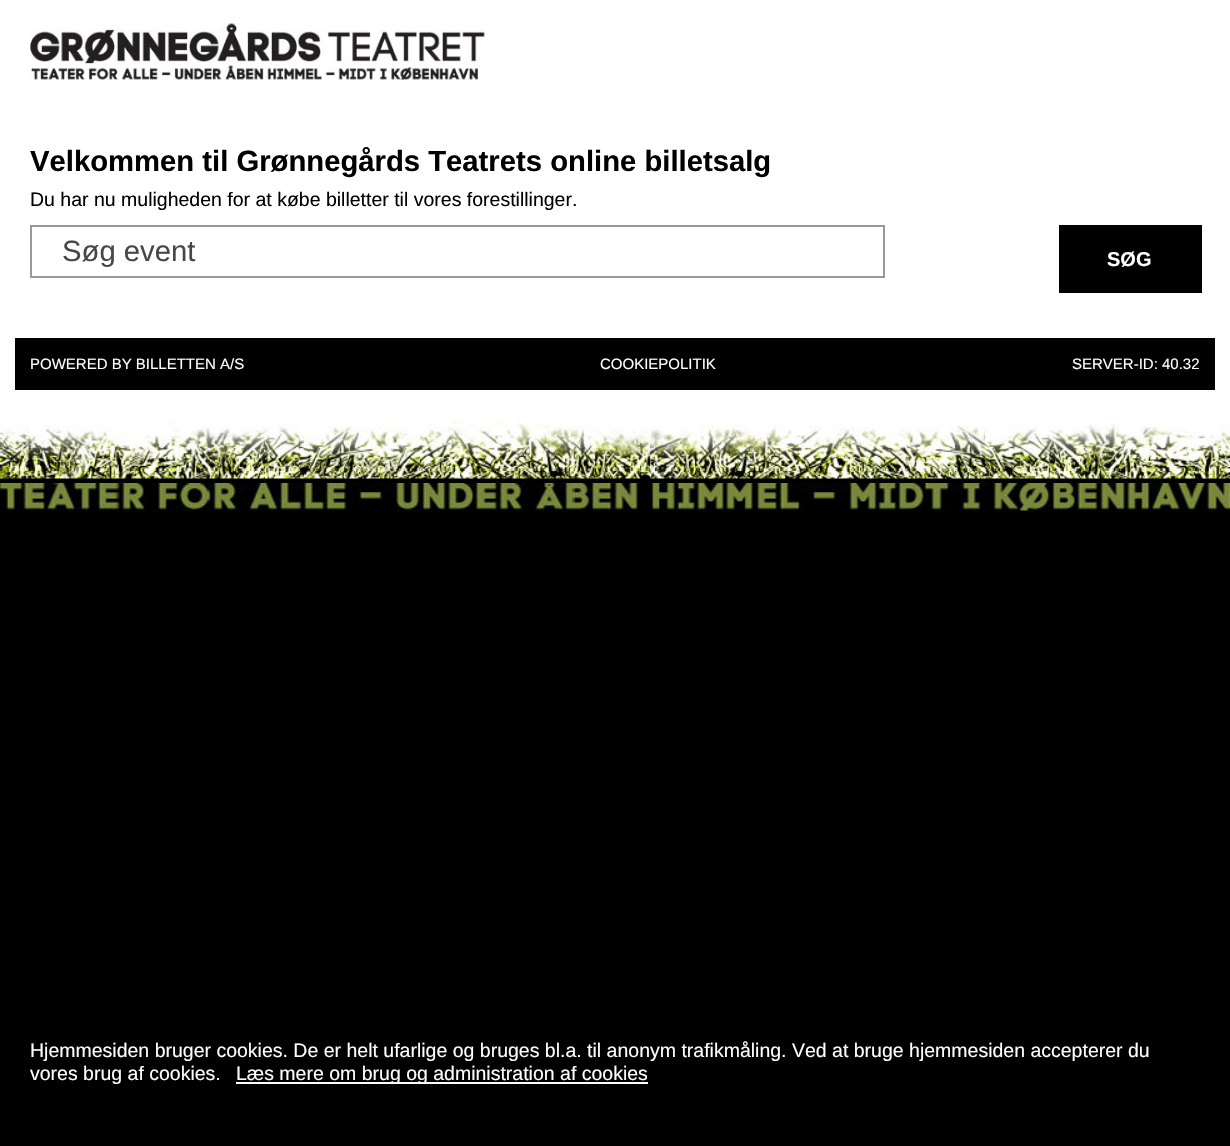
#include "include/core/SkBlurTypes.h"
#include "include/core/SkCanvas.h"
#include "include/core/SkData.h"
#include "include/core/SkFont.h"
#include "include/core/SkFontMgr.h"
#include "include/core/SkImage.h"
#include "include/core/SkMaskFilter.h"
#include "include/core/SkPaint.h"
#include "include/core/SkPathBuilder.h"
#include "include/core/SkTextBlob.h"
#include "include/effects/SkDashPathEffect.h"
#include "include/effects/SkGradientShader.h"
#include "include/utils/SkParsePath.h"

extern sk_sp<SkFontMgr> fontMgr;

void draw(SkCanvas* canvas) {
    SkPaint p;
    p.setAntiAlias(true);
    auto font = [&](const char* family, int weight, float size, bool italic = false) {
        SkFontStyle style(weight, SkFontStyle::kNormal_Width,
            italic ? SkFontStyle::kItalic_Slant : SkFontStyle::kUpright_Slant);
        SkFont result(fontMgr->matchFamilyStyle(family, style), size);
        result.setSubpixel(true);
        return result;
    };
    auto drawPhoto = [&](const char* path, float l, float t, float r, float b) {
        auto image = SkImages::DeferredFromEncodedData(SkData::MakeFromFileName(path));
        canvas->drawImageRect(image, SkRect::MakeLTRB(l, t, r, b), SkSamplingOptions());
    };
    canvas->clear(0xFFFFFFFF);
    drawPhoto("media/1.png", 30, 23, 485, 80);
    auto font1 = font("Liberation Sans", 700, 29.25f);
    p.setColor(0xFF000000);
    canvas->drawString("Velkommen til Grønnegårds Teatrets online billetsalg", 30, 171, font1, p);
    auto font2 = font("Liberation Sans", 400, 19.5f);
    canvas->drawString("Du har nu muligheden for at købe billetter til vores forestillinger.", 30, 206, font2, p);
    p.setStyle(SkPaint::kStroke_Style);
    p.setStrokeWidth(2);
    p.setColor(0xFF999999);
    canvas->drawRect(SkRect::MakeLTRB(31, 226, 884, 277), p);
    auto font3 = font("Liberation Sans", 400, 29.25f);
    p.setStyle(SkPaint::kFill_Style);
    p.setColor(0xFF474747);
    canvas->drawString("Søg event", 62, 261, font3, p);
    p.setColor(0xFF000000);
    canvas->drawRect(SkRect::MakeLTRB(1059, 225, 1202, 293), p);
    auto font4 = font("Liberation Sans", 700, 20);
    p.setColor(0xFFFFFFFF);
    canvas->drawString("SØG", 1107, 266, font4, p);
    p.setColor(0xFF000000);
    canvas->drawRect(SkRect::MakeLTRB(15, 338, 1215, 390), p);
    auto font5 = font("Liberation Sans", 400, 15);
    p.setColor(0xFFFFFFFF);
    {
        const struct { const char* s; float x, y; } items[] = {
            {"POWERED BY BILLETTEN A/S", 30, 369},
            {"COOKIEPOLITIK", 600, 369},
            {"SERVER-ID: 40.32", 1072, 369},
        };
        for (auto [s, x, y] : items) {
            canvas->drawString(s, x, y, font5, p);
        }
    }
    p.setColor(0xFF000000);
    canvas->drawRect(SkRect::MakeLTRB(0, 478, 1230, 1146), p);
    drawPhoto("media/2.png", 0, 405, 1230, 479);
    drawPhoto("media/3.png", 0, 483, 1230, 514);
    p.setColor(0xFFFFFFFF);
    canvas->drawString("Hjemmesiden bruger cookies. De er helt ufarlige og bruges bl.a. til anonym trafikmåling. Ved at bruge hjemmesiden accepterer du", 30, 1057, font2, p);
    canvas->drawString("vores brug af cookies.", 30, 1080, font2, p);
    canvas->drawRect(SkRect::MakeLTRB(236, 1082, 648, 1084), p);
    canvas->drawString("Læs mere om brug og administration af cookies", 236, 1080, font2, p);
}
